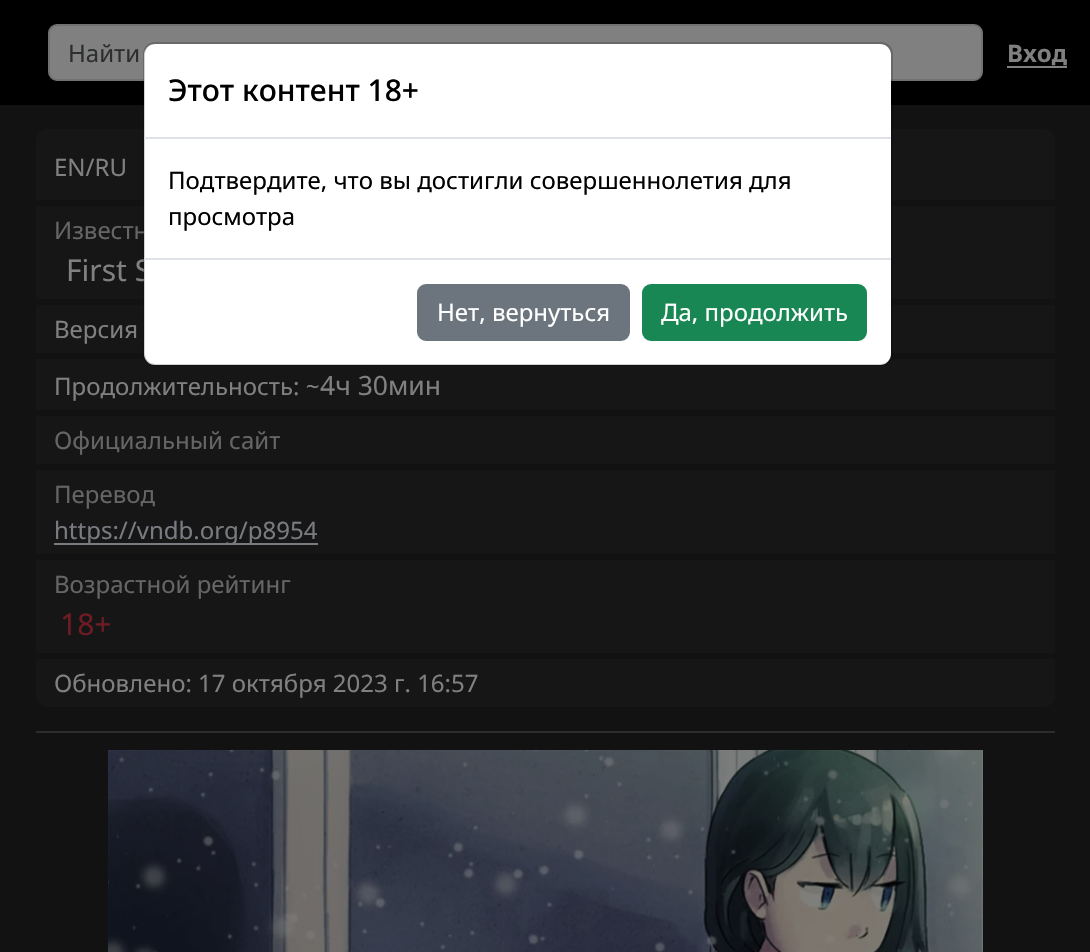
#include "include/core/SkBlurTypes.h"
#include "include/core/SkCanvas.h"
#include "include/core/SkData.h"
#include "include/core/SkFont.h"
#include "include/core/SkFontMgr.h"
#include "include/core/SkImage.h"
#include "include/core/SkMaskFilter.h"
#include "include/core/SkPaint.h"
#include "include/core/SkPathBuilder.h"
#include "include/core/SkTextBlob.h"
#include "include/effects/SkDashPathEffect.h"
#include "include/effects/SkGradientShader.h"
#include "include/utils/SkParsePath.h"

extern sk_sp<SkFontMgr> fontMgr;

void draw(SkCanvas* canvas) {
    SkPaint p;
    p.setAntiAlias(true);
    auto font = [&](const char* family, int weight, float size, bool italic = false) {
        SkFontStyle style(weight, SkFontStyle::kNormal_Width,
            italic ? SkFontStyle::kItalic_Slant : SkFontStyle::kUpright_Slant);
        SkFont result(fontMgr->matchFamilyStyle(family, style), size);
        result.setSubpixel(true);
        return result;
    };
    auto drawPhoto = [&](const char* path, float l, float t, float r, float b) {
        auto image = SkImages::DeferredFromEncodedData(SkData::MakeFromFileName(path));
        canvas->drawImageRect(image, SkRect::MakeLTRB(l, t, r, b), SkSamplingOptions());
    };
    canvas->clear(0xFF121212);
    p.setColor(0xFF000000);
    canvas->drawRect(SkRect::MakeLTRB(0, 0, 1090, 105), p);
    p.setColor(0xFF808080);
    canvas->drawRoundRect(SkRect::MakeLTRB(49, 25, 982, 80), 8, 8, p);
    p.setStyle(SkPaint::kStroke_Style);
    p.setStrokeWidth(2);
    p.setColor(0xFF6F7173);
    canvas->drawRoundRect(SkRect::MakeLTRB(49, 25, 982, 80), 8, 8, p);
    auto font1 = font("Noto Sans", 400, 24);
    p.setStyle(SkPaint::kFill_Style);
    p.setColor(0xFF2D2E30);
    canvas->drawString("Найти", 68, 62, font1, p);
    auto font2 = font("Noto Sans", 700, 24);
    p.setColor(0xFF808080);
    canvas->drawString("Вход", 1007, 62, font2, p);
    canvas->drawRect(SkRect::MakeLTRB(1007, 66, 1067, 68), p);
    p.setColor(0xFF161616);
    canvas->drawPath(SkPathBuilder().moveTo(48, 129).lineTo(1043, 129).cubicTo(1049.5f, 129, 1055, 134.5f, 1055, 141).lineTo(1055, 200).lineTo(36, 200).lineTo(36, 141).cubicTo(36, 134.5f, 41.5f, 129, 48, 129).close().detach(), p);
    canvas->drawRect(SkRect::MakeLTRB(36, 206, 1055, 299), p);
    p.setColor(0xFF656565);
    canvas->drawString("Известн", 54, 239, font1, p);
    auto font3 = font("Noto Sans", 400, 30);
    p.setColor(0xFF808080);
    canvas->drawString("First S", 66, 281, font3, p);
    p.setColor(0xFF161616);
    canvas->drawRect(SkRect::MakeLTRB(36, 305, 1055, 353), p);
    canvas->drawRect(SkRect::MakeLTRB(36, 359, 1055, 410), p);
    p.setColor(0xFFFFFFFF);
    canvas->drawRoundRect(SkRect::MakeLTRB(144, 44, 891, 365), 11, 11, p);
    p.setStyle(SkPaint::kStroke_Style);
    p.setColor(0x2E000000);
    canvas->drawRoundRect(SkRect::MakeLTRB(144, 43, 892, 365), 11, 11, p);
    p.setStyle(SkPaint::kFill_Style);
    p.setColor(0xFFDEE2E6);
    canvas->drawRect(SkRect::MakeLTRB(144, 137, 891, 139), p);
    auto font4 = font("Noto Sans", 500, 30);
    p.setColor(0xFF000000);
    canvas->drawString("Этот контент 18+", 168, 101, font4, p);
    canvas->drawString("Подтвердите, что вы достигли совершеннолетия для", 168, 189, font1, p);
    canvas->drawString("просмотра", 168, 225, font1, p);
    p.setColor(0xFFDEE2E6);
    canvas->drawRect(SkRect::MakeLTRB(144, 258, 891, 260), p);
    p.setColor(0xFF6C757D);
    canvas->drawRoundRect(SkRect::MakeLTRB(418, 285, 629, 340), 8, 8, p);
    p.setStyle(SkPaint::kStroke_Style);
    canvas->drawRoundRect(SkRect::MakeLTRB(418, 285, 629, 340), 8, 8, p);
    p.setStyle(SkPaint::kFill_Style);
    p.setColor(0xFFFFFFFF);
    canvas->drawString("Нет, вернуться", 437, 321, font1, p);
    p.setColor(0xFF198754);
    canvas->drawRoundRect(SkRect::MakeLTRB(643, 285, 866, 340), 8, 8, p);
    p.setStyle(SkPaint::kStroke_Style);
    canvas->drawRoundRect(SkRect::MakeLTRB(643, 285, 866, 340), 8, 8, p);
    p.setStyle(SkPaint::kFill_Style);
    p.setColor(0xFFFFFFFF);
    canvas->drawString("Да, продолжить", 661, 321, font1, p);
    p.setColor(0xFF808080);
    {
        const struct { const char* s; float x, y; } items[] = {
            {"EN/RU", 54, 176},
            {"Версия", 54, 338},
            {"Продолжительность: ~", 54, 395},
        };
        for (auto [s, x, y] : items) {
            canvas->drawString(s, x, y, font1, p);
        }
    }
    auto font5 = font("Noto Sans", 400, 26.5f);
    canvas->drawString("4ч 30мин", 320, 395, font5, p);
    p.setColor(0xFF161616);
    canvas->drawRect(SkRect::MakeLTRB(36, 416, 1055, 464), p);
    p.setColor(0xFF656565);
    canvas->drawString("Официальный сайт", 54, 449, font1, p);
    p.setColor(0xFF161616);
    canvas->drawRect(SkRect::MakeLTRB(36, 470, 1055, 554), p);
    p.setColor(0xFF656565);
    canvas->drawString("Перевод", 54, 503, font1, p);
    p.setColor(0xFF787B80);
    canvas->drawRect(SkRect::MakeLTRB(54, 543, 318, 545), p);
    canvas->drawString("https://vndb.org/p8954", 54, 539, font1, p);
    p.setColor(0xFF161616);
    canvas->drawRect(SkRect::MakeLTRB(36, 560, 1055, 653), p);
    p.setColor(0xFF656565);
    canvas->drawString("Возрастной рейтинг", 54, 593, font1, p);
    p.setColor(0xFF6E1B23);
    canvas->drawString("18+", 60, 635, font3, p);
    p.setColor(0xFF161616);
    canvas->drawPath(SkPathBuilder().moveTo(36, 659).lineTo(1055, 659).lineTo(1055, 695).cubicTo(1055, 701.5f, 1049.5f, 707, 1043, 707).lineTo(48, 707).cubicTo(41.5f, 707, 36, 701.5f, 36, 695).close().detach(), p);
    p.setColor(0xFF808080);
    canvas->drawString("Обновлено: 17 октября 2023 г. 16:57", 54, 692, font1, p);
    p.setColor(0xFF2D2D2D);
    canvas->drawRect(SkRect::MakeLTRB(36, 731, 1055, 733), p);
    drawPhoto("media/1.png", 108, 750, 983, 952);
}
